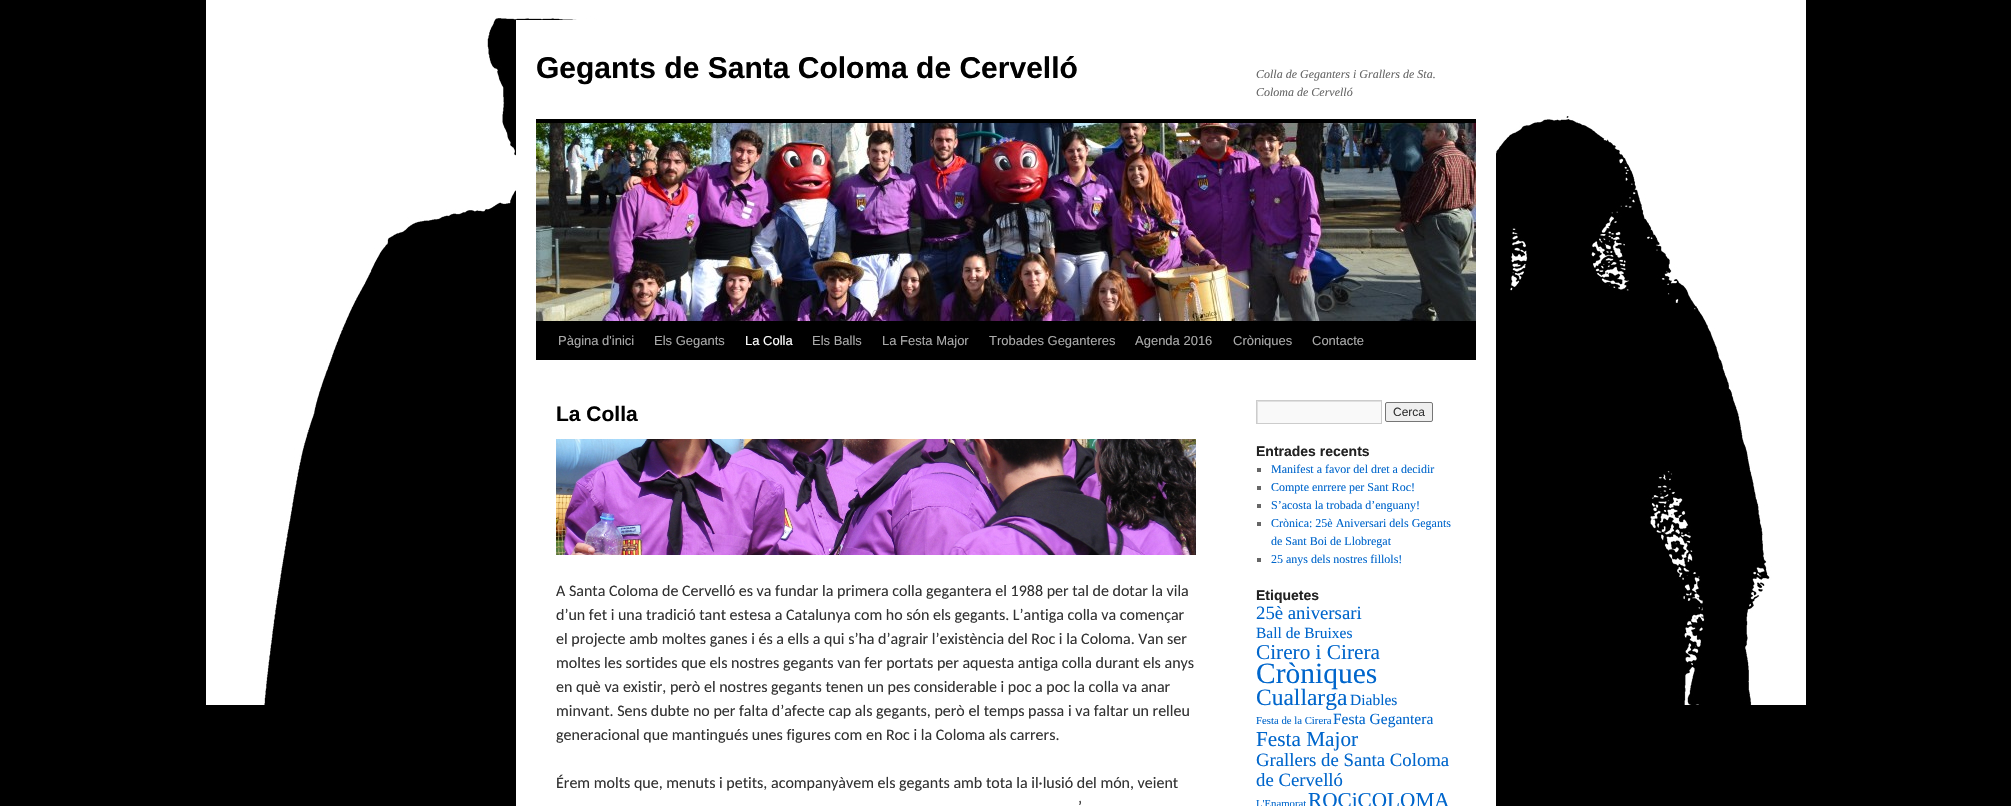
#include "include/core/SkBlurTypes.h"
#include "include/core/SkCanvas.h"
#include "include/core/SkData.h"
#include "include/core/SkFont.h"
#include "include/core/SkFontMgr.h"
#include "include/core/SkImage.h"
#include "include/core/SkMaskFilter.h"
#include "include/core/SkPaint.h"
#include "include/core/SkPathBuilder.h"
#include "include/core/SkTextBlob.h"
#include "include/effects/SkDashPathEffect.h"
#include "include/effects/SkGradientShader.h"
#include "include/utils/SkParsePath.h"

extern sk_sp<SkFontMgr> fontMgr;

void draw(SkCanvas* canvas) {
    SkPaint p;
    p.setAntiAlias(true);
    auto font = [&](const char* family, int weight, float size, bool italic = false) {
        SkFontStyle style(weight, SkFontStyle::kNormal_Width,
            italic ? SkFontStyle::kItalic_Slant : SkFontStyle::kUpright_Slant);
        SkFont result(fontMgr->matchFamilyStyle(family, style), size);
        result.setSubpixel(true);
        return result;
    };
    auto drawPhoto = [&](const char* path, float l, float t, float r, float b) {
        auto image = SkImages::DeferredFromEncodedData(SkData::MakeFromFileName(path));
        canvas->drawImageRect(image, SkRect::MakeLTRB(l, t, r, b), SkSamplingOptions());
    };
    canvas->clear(0xFF000000);
    drawPhoto("media/1.png", 206, 0, 1806, 705);
    p.setColor(0xFFFFFFFF);
    canvas->drawRect(SkRect::MakeLTRB(516, 20, 1496, 806), p);
    auto font1 = font("Liberation Sans", 700, 30);
    p.setColor(0xFF000000);
    canvas->drawString("Gegants de Santa Coloma de Cervelló", 536, 78, font1, p);
    auto font2 = font("Liberation Serif", 400, 12, true);
    p.setColor(0xFF666666);
    canvas->drawString("Colla de Geganters i Grallers de Sta.", 1256, 78, font2, p);
    canvas->drawString("Coloma de Cervelló", 1256, 96, font2, p);
    p.setColor(0xFF000000);
    canvas->drawRect(SkRect::MakeLTRB(536, 119, 1476, 123), p);
    canvas->drawRect(SkRect::MakeLTRB(536, 321, 1476, 360), p);
    drawPhoto("media/2.png", 536, 123, 1476, 321);
    auto font3 = font("Liberation Sans", 400, 13);
    p.setColor(0xFFAAAAAA);
    canvas->drawString("Pàgina d'inici", 558, 345, font3, p);
    canvas->drawString("Els Gegants", 654, 345, font3, p);
    p.setColor(0xFFFFFFFF);
    canvas->drawString("La Colla", 745, 345, font3, p);
    p.setColor(0xFFAAAAAA);
    {
        const struct { const char* s; float x, y; } items[] = {
            {"Els Balls", 812, 345},
            {"La Festa Major", 882, 345},
            {"Trobades Geganteres", 989, 345},
            {"Agenda 2016", 1135, 345},
            {"Cròniques", 1233, 345},
            {"Contacte", 1312, 345},
        };
        for (auto [s, x, y] : items) {
            canvas->drawString(s, x, y, font3, p);
        }
    }
    auto font4 = font("Liberation Sans", 700, 21);
    p.setColor(0xFF000000);
    canvas->drawString("La Colla", 556, 421, font4, p);
    drawPhoto("media/3.png", 556, 439, 1196, 555);
    auto font5 = font("Carlito", 400, 16);
    p.setColor(0xFF333333);
    {
        const struct { const char* s; float x, y; } items[] = {
            {"A Santa Coloma de Cervelló es va fundar la primera colla gegantera el 1988 per tal de dotar la vila", 556, 596},
            {"d’un fet i una tradició tant estesa a Catalunya com ho són els gegants. L’antiga colla va començar", 556, 620},
            {"el projecte amb moltes ganes i és a ells a qui s’ha d’agrair l’existència del Roc i la Coloma. Van ser", 556, 644},
            {"moltes les sortides que els nostres gegants van fer portats per aquesta antiga colla durant els anys", 556, 668},
            {"en què va existir, però el nostres gegants tenen un pes considerable i poc a poc la colla va anar", 556, 692},
            {"minvant. Sens dubte no per falta d’afecte cap als gegants, però el temps passa i va faltar un relleu", 556, 716},
            {"generacional que mantingués unes figures com en Roc i la Coloma als carrers.", 556, 740},
            {"Érem molts que, menuts i petits, acompanyàvem els gegants amb tota la il·lusió del món, veient", 556, 788},
            {"’", 1078, 812},
        };
        for (auto [s, x, y] : items) {
            canvas->drawString(s, x, y, font5, p);
        }
    }
    p.setColor(0xFFF9F9F9);
    canvas->drawRect(SkRect::MakeLTRB(1258, 402, 1381, 423), p);
    canvas->save();
    canvas->clipRect(SkRect::MakeLTRB(1257, 401, 1381, 423));
    p.setColor(0xFFE0E0E0);
    canvas->drawPath(SkPathBuilder(SkPathFillType::kEvenOdd).moveTo(1158, 302).lineTo(1480, 302).lineTo(1480, 522).lineTo(1158, 522).close().moveTo(1258, 402).lineTo(1382, 402).lineTo(1382, 424).lineTo(1258, 424).close().detach(), p);
    canvas->restore();
    p.setStyle(SkPaint::kStroke_Style);
    p.setStrokeWidth(1);
    p.setColor(0xFFCCCCCC);
    canvas->drawRect(SkRect::MakeLTRB(1256.5f, 400.5f, 1381.5f, 423.5f), p);
    p.setStyle(SkPaint::kFill_Style);
    p.setColor(0xFFEFEFEF);
    canvas->drawRoundRect(SkRect::MakeLTRB(1385.5f, 402.5f, 1432.5f, 421.5f), 1.5f, 1.5f, p);
    p.setStyle(SkPaint::kStroke_Style);
    p.setColor(0xFF767676);
    canvas->drawRoundRect(SkRect::MakeLTRB(1385.5f, 402.5f, 1432.5f, 421.5f), 1.5f, 1.5f, p);
    auto font6 = font("Liberation Sans", 400, 12);
    p.setStyle(SkPaint::kFill_Style);
    p.setColor(0xFF333333);
    canvas->drawString("Cerca", 1393, 416, font6, p);
    auto font7 = font("Liberation Sans", 700, 14);
    p.setColor(0xFF222222);
    canvas->drawString("Entrades recents", 1256, 456, font7, p);
    p.setColor(0xFF666666);
    canvas->drawRect(SkRect::MakeLTRB(1257, 468, 1261, 472), p);
    auto font8 = font("Liberation Serif", 400, 12);
    p.setColor(0xFF0066CC);
    canvas->drawString("Manifest a favor del dret a decidir", 1271, 473, font8, p);
    p.setColor(0xFF666666);
    canvas->drawRect(SkRect::MakeLTRB(1257, 486, 1261, 490), p);
    p.setColor(0xFF0066CC);
    canvas->drawString("Compte enrrere per Sant Roc!", 1271, 491, font8, p);
    p.setColor(0xFF666666);
    canvas->drawRect(SkRect::MakeLTRB(1257, 504, 1261, 508), p);
    p.setColor(0xFF0066CC);
    canvas->drawString("S’acosta la trobada d’enguany!", 1271, 509, font8, p);
    p.setColor(0xFF666666);
    canvas->drawRect(SkRect::MakeLTRB(1257, 522, 1261, 526), p);
    p.setColor(0xFF0066CC);
    canvas->drawString("Crònica: 25è Aniversari dels Gegants", 1271, 527, font8, p);
    canvas->drawString("de Sant Boi de Llobregat", 1271, 545, font8, p);
    p.setColor(0xFF666666);
    canvas->drawRect(SkRect::MakeLTRB(1257, 558, 1261, 562), p);
    p.setColor(0xFF0066CC);
    canvas->drawString("25 anys dels nostres fillols!", 1271, 563, font8, p);
    p.setColor(0xFF222222);
    canvas->drawString("Etiquetes", 1256, 600, font7, p);
    auto font9 = font("Liberation Serif", 400, 18.75f);
    p.setColor(0xFF0066CC);
    canvas->drawString("25è aniversari", 1256, 619, font9, p);
    auto font10 = font("Liberation Serif", 400, 15.5f);
    canvas->drawString("Ball de Bruixes", 1256, 638, font10, p);
    auto font11 = font("Liberation Serif", 400, 21.25f);
    canvas->drawString("Cirero i Cirera", 1256, 659, font11, p);
    auto font12 = font("Liberation Serif", 400, 29.5f);
    canvas->drawString("Cròniques", 1256, 683, font12, p);
    auto font13 = font("Liberation Serif", 400, 23.5f);
    canvas->drawString("Cuallarga", 1256, 705, font13, p);
    canvas->drawString("Diables", 1350, 705, font10, p);
    auto font14 = font("Liberation Serif", 400, 10.75f);
    canvas->drawString("Festa de la Cirera", 1256, 724, font14, p);
    canvas->drawString("Festa Gegantera", 1333, 724, font10, p);
    canvas->drawString("Festa Major", 1256, 746, font11, p);
    canvas->drawString("Grallers de Santa Coloma", 1256, 766, font9, p);
    canvas->drawString("de Cervelló", 1256, 786, font9, p);
    canvas->drawString("L'Enamorat", 1256, 807, font14, p);
    canvas->drawString("ROCiCOLOMA", 1308, 807, font11, p);
}
